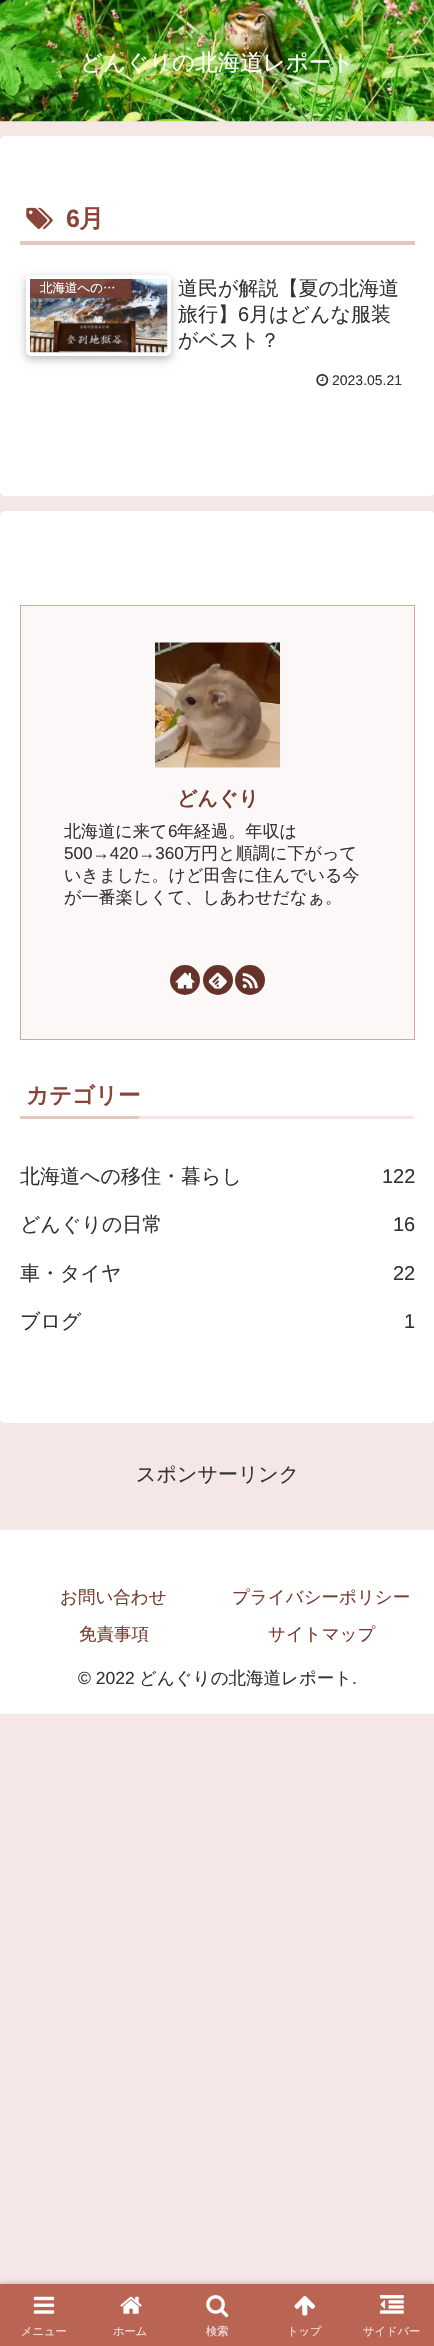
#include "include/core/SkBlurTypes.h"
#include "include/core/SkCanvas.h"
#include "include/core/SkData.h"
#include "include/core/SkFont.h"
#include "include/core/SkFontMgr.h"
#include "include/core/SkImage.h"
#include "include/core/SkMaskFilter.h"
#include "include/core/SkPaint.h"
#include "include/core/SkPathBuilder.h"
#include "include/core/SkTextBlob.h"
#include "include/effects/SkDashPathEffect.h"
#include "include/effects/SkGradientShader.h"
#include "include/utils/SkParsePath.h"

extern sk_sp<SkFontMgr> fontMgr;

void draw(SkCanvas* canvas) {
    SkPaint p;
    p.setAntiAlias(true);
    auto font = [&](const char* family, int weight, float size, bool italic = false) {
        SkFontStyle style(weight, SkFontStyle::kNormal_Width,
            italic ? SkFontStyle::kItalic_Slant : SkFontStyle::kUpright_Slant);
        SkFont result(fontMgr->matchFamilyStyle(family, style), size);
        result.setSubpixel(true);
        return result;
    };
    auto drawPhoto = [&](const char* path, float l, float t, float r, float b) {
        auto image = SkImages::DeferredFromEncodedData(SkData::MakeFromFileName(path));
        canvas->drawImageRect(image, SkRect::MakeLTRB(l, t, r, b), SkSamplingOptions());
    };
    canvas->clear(0xFFF4E7E5);
    drawPhoto("media/1.png", 0, 0, 434, 122);
    auto font1 = font("WenQuanYi Zen Hei", 500, 22.5f);
    p.setColor(0xFFFFFFFF);
    canvas->drawString("どんぐりの北海道レポート", 80, 70, font1, p);
    canvas->drawRoundRect(SkRect::MakeLTRB(0, 136, 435, 496), 5, 5, p);
    p.setColor(0xFFE6C7C0);
    canvas->drawRect(SkRect::MakeLTRB(20, 241, 415, 245), p);
    drawPhoto("media/2.png", 26, 207, 53, 229);
    auto font2 = font("Liberation Sans", 700, 25);
    p.setColor(0xFF894537);
    canvas->drawString("6", 66, 227, font2, p);
    auto font3 = font("WenQuanYi Zen Hei", 700, 25);
    canvas->drawString("月", 79, 227, font3, p);
    p.setColor(0x1F000000);
    p.setMaskFilter(SkMaskFilter::MakeBlur(kNormal_SkBlurStyle, 6));
    canvas->drawRoundRect(SkRect::MakeLTRB(26, 278, 171, 359), 5, 5, p);
    p.setMaskFilter(nullptr);
    p.setColor(0x29000000);
    p.setMaskFilter(SkMaskFilter::MakeBlur(kNormal_SkBlurStyle, 3));
    canvas->drawRoundRect(SkRect::MakeLTRB(26, 278, 171, 359), 5, 5, p);
    p.setMaskFilter(nullptr);
    p.setStyle(SkPaint::kStroke_Style);
    p.setStrokeWidth(4);
    p.setColor(0xFFFFFFFF);
    canvas->drawRoundRect(SkRect::MakeLTRB(28, 277, 169, 354), 3, 3, p);
    drawPhoto("media/3.png", 30, 278, 168, 353);
    p.setStyle(SkPaint::kFill_Style);
    p.setColor(0xE6773C30);
    canvas->drawRect(SkRect::MakeLTRB(30, 279, 131, 298), p);
    auto font4 = font("WenQuanYi Zen Hei", 500, 12.5f);
    p.setColor(0xFFFFFFFF);
    canvas->drawString("北海道への…", 40, 292, font4, p);
    auto font5 = font("WenQuanYi Zen Hei", 500, 20);
    p.setColor(0xFF333333);
    canvas->drawString("道民が解説【夏の北海道", 178, 295, font5, p);
    canvas->drawString("旅行】", 178, 321, font5, p);
    auto font6 = font("Liberation Sans", 400, 20);
    canvas->drawString("6", 238, 321, font6, p);
    canvas->drawString("月はどんな服装", 249, 321, font5, p);
    canvas->drawString("がベスト？", 178, 347, font5, p);
    drawPhoto("media/4.png", 316, 374, 329, 386);
    auto font7 = font("Liberation Sans", 400, 14);
    canvas->drawString("2023.05.21", 332, 385, font7, p);
    p.setColor(0xFFFFFFFF);
    canvas->drawRoundRect(SkRect::MakeLTRB(0, 511, 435, 1423), 5, 5, p);
    p.setColor(0xFFFCF8F7);
    canvas->drawRect(SkRect::MakeLTRB(20.5f, 605.5f, 414.5f, 1039.5f), p);
    p.setStyle(SkPaint::kStroke_Style);
    p.setStrokeWidth(1);
    p.setColor(0xFFD7A69C);
    canvas->drawRect(SkRect::MakeLTRB(20.5f, 605.5f, 414.5f, 1039.5f), p);
    drawPhoto("media/5.png", 155, 642, 280, 768);
    auto font8 = font("WenQuanYi Zen Hei", 700, 20);
    p.setStyle(SkPaint::kFill_Style);
    p.setColor(0xFF773C30);
    canvas->drawString("どんぐり", 177, 805, font8, p);
    auto font9 = font("WenQuanYi Zen Hei", 500, 17.1f);
    p.setColor(0xFF333333);
    canvas->drawString("北海道に来て", 64, 837, font9, p);
    auto font10 = font("Liberation Sans", 400, 17.1f);
    canvas->drawString("6", 168, 837, font10, p);
    canvas->drawString("年経過。年収は", 177, 837, font9, p);
    canvas->drawString("500→420→360", 64, 859, font10, p);
    {
        const struct { const char* s; float x, y; } items[] = {
            {"万円と順調に下がって", 184, 859},
            {"いきました。けど田舎に住んでいる今", 64, 881},
            {"が一番楽しくて、しあわせだなぁ。", 64, 903},
        };
        for (auto [s, x, y] : items) {
            canvas->drawString(s, x, y, font9, p);
        }
    }
    p.setColor(0xFF653329);
    canvas->drawCircle(185, 980, 15, p);
    drawPhoto("media/6.png", 175, 972, 195, 989);
    canvas->drawCircle(218, 980, 15, p);
    drawPhoto("media/7.png", 208, 972, 227, 989);
    canvas->drawCircle(250, 980, 15, p);
    drawPhoto("media/8.png", 242, 973, 258, 989);
    p.setColor(0xFFF4E7E5);
    canvas->drawRect(SkRect::MakeLTRB(139, 1116, 414, 1119), p);
    auto font11 = font("WenQuanYi Zen Hei", 700, 22.5f);
    p.setColor(0xFF894537);
    canvas->drawString("カテゴリー", 26, 1103, font11, p);
    p.setColor(0xFFE6C7C0);
    canvas->drawRect(SkRect::MakeLTRB(20, 1116, 139, 1119), p);
    p.setColor(0xFF333333);
    canvas->drawString("北海道への移住・暮らし", 20, 1183, font5, p);
    canvas->drawString("122", 382, 1183, font6, p);
    canvas->drawString("どんぐりの日常", 20, 1231, font5, p);
    canvas->drawString("16", 393, 1231, font6, p);
    canvas->drawString("車・タイヤ", 20, 1280, font5, p);
    canvas->drawString("22", 393, 1280, font6, p);
    canvas->drawString("ブログ", 20, 1328, font5, p);
    canvas->drawString("1", 404, 1328, font6, p);
    canvas->drawString("スポンサーリンク", 136, 1481, font5, p);
    p.setColor(0xFFFFFFFF);
    canvas->drawRect(SkRect::MakeLTRB(0, 1530, 434, 1714), p);
    auto font12 = font("WenQuanYi Zen Hei", 500, 17.5f);
    p.setColor(0xFF773C30);
    {
        const struct { const char* s; float x, y; } items[] = {
            {"お問い合わせ", 60, 1603},
            {"プライバシーポリシー", 232, 1603},
            {"免責事項", 79, 1640},
            {"サイトマップ", 268, 1640},
        };
        for (auto [s, x, y] : items) {
            canvas->drawString(s, x, y, font12, p);
        }
    }
    auto font13 = font("Liberation Sans", 400, 17.5f);
    p.setColor(0xFF333333);
    canvas->drawString("© 2022", 78, 1684, font13, p);
    canvas->drawString("どんぐりの北海道レポート", 139, 1684, font12, p);
    canvas->drawString(".", 352, 1684, font13, p);
    p.setColor(0xFFA9A9A9);
    p.setMaskFilter(SkMaskFilter::MakeBlur(kNormal_SkBlurStyle, 3));
    canvas->drawRect(SkRect::MakeLTRB(0, 2284, 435, 2346), p);
    p.setMaskFilter(nullptr);
    p.setColor(0xFFBA6553);
    canvas->drawRect(SkRect::MakeLTRB(0, 2284, 434, 2346), p);
    drawPhoto("media/9.png", 33, 2296, 55, 2314);
    auto font14 = font("WenQuanYi Zen Hei", 500, 11.25f);
    p.setColor(0xFFF1E0DD);
    canvas->drawString("メニュー", 21, 2335, font14, p);
    drawPhoto("media/10.png", 120, 2296, 142, 2314);
    canvas->drawString("ホーム", 113, 2335, font14, p);
    drawPhoto("media/11.png", 206, 2295, 229, 2318);
    canvas->drawString("検索", 206, 2335, font14, p);
    drawPhoto("media/12.png", 294, 2296, 316, 2316);
    canvas->drawString("トップ", 287, 2335, font14, p);
    drawPhoto("media/13.png", 380, 2295, 404, 2314);
    canvas->drawString("サイドバー", 363, 2335, font14, p);
}
